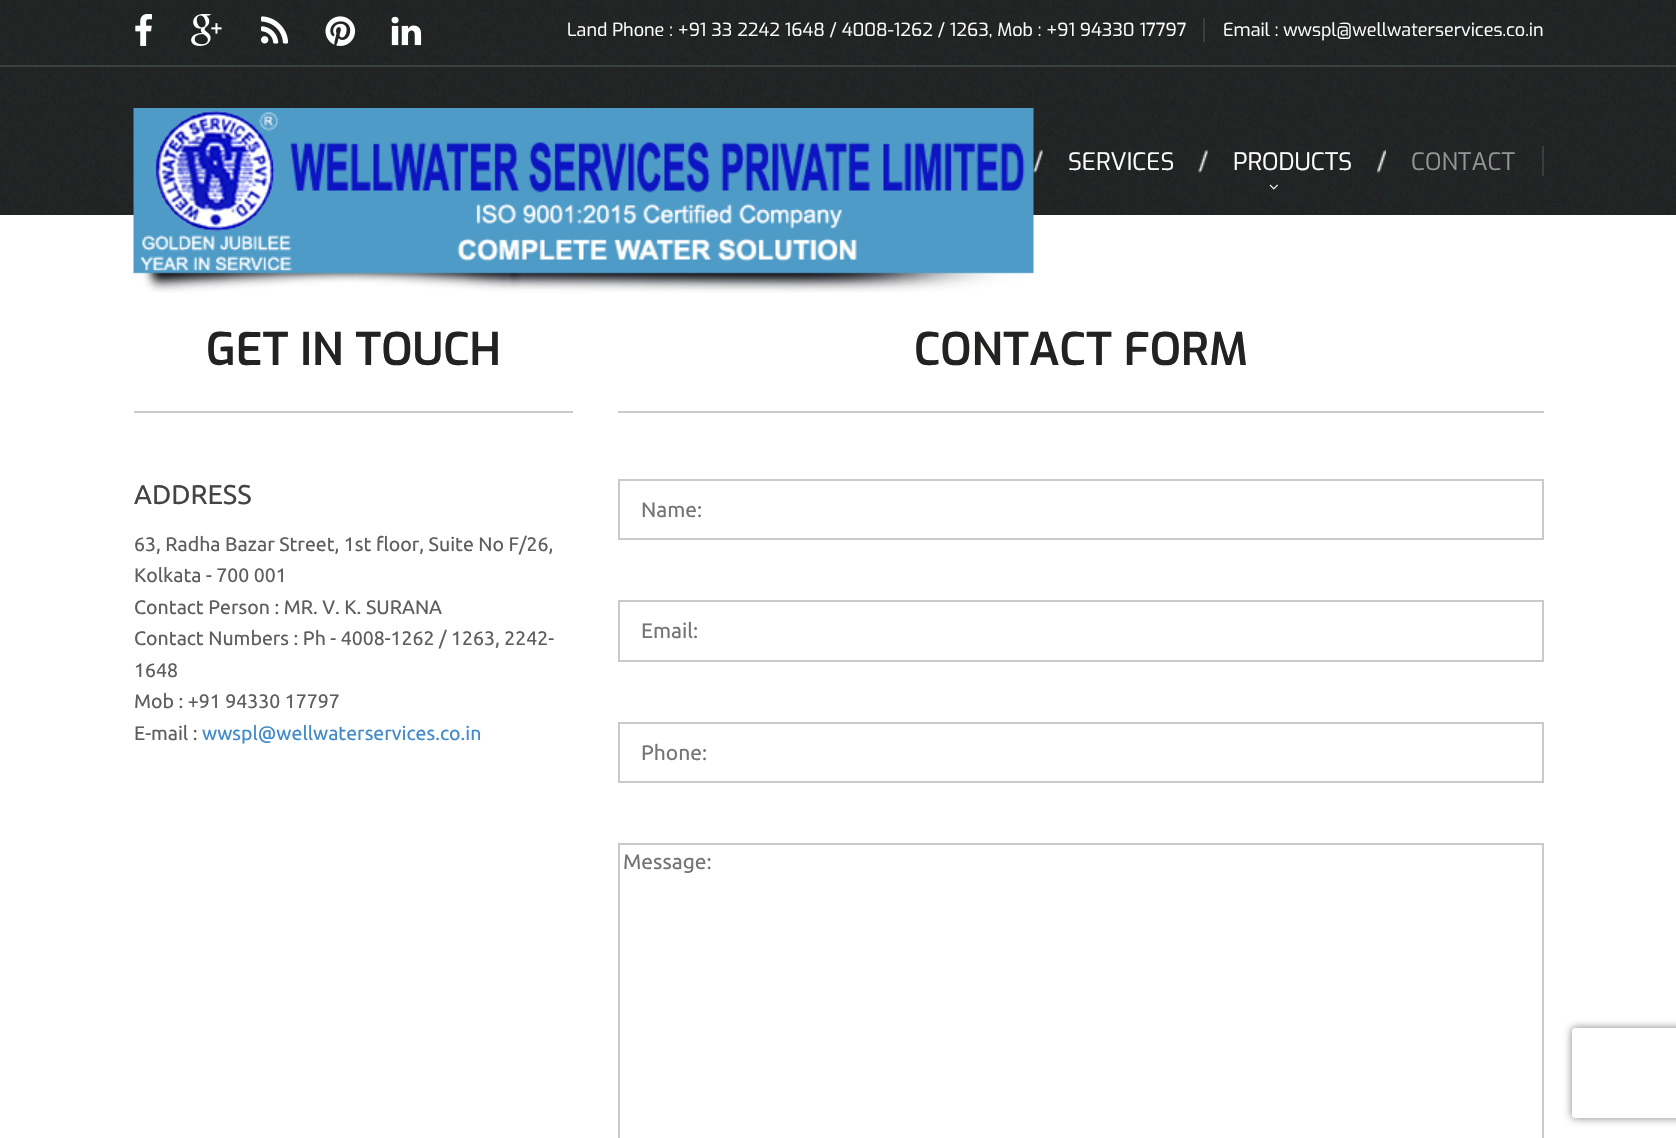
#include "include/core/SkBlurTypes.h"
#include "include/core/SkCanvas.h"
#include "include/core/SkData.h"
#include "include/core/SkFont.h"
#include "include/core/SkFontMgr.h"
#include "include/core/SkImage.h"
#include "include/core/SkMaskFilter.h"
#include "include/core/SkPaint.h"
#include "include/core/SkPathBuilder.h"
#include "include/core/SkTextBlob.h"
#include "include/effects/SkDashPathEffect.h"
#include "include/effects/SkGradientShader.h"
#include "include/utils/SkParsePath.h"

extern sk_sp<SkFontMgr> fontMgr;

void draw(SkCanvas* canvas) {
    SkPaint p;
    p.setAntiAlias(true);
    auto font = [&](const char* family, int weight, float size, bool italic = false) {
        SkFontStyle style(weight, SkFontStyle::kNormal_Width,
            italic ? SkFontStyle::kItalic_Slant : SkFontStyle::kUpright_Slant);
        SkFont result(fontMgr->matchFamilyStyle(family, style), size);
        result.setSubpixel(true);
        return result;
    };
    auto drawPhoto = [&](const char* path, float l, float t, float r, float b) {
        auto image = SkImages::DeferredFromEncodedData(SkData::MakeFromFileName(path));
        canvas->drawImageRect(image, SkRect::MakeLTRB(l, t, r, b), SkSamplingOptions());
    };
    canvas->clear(0xFFFFFFFF);
    drawPhoto("media/1.png", 0, 0, 1676, 215);
    p.setColor(0xFF39423F);
    canvas->drawRect(SkRect::MakeLTRB(0, 65, 1676, 67), p);
    drawPhoto("media/2.png", 135, 14, 152, 46);
    drawPhoto("media/3.png", 191, 14, 222, 46);
    drawPhoto("media/4.png", 261, 16, 289, 44);
    drawPhoto("media/5.png", 325, 16, 356, 46);
    drawPhoto("media/6.png", 391, 16, 422, 46);
    auto font1 = font("Exo", 400, 18);
    p.setColor(0xFFFFFFFF);
    canvas->drawString("Land Phone : +91 33 2242 1648 / 4008-1262 / 1263, Mob : +91 94330 17797", 567, 36, font1, p);
    p.setColor(0xFF3E3C3E);
    canvas->drawRect(SkRect::MakeLTRB(1203, 18, 1205, 42), p);
    p.setColor(0xFFFFFFFF);
    canvas->drawString("Email : wwspl@wellwaterservices.co.in", 1223, 36, font1, p);
    drawPhoto("media/8.png", 1033, 150, 1043, 173);
    drawPhoto("media/7.png", 133, 108, 1034, 293);
    drawPhoto("media/9.png", 1198, 150, 1208, 173);
    auto font2 = font("Exo", 400, 24);
    canvas->drawString("SERVICES", 1068, 170, font2, p);
    drawPhoto("media/10.png", 1377, 150, 1386, 173);
    canvas->drawString("PRODUCTS", 1233, 170, font2, p);
    drawPhoto("media/11.png", 1269, 184, 1278, 190);
    p.setColor(0xFF949494);
    canvas->drawString("CONTACT", 1411, 170, font2, p);
    p.setColor(0xFF3E3C3E);
    canvas->drawRect(SkRect::MakeLTRB(1542, 146, 1544, 176), p);
    auto font3 = font("Exo", 600, 45);
    p.setColor(0xFF222220);
    canvas->drawString("GET IN TOUCH", 206, 365, font3, p);
    p.setColor(0xFFCACACA);
    canvas->drawRect(SkRect::MakeLTRB(134, 411, 573, 413), p);
    auto font4 = font("Ubuntu", 400, 27);
    p.setColor(0xFF444444);
    canvas->drawString("ADDRESS", 134, 504, font4, p);
    auto font5 = font("Ubuntu", 400, 19.5f);
    p.setColor(0xFF5F5E5E);
    {
        const struct { const char* s; float x, y; } items[] = {
            {"63, Radha Bazar Street, 1st floor, Suite No F/26,", 134, 551},
            {"Kolkata - 700 001", 134, 582},
            {"Contact Person : MR. V. K. SURANA", 134, 614},
            {"Contact Numbers : Ph - 4008-1262 / 1263, 2242-", 134, 645},
            {"1648", 134, 677},
            {"Mob : +91 94330 17797", 134, 708},
            {"E-mail :", 134, 740},
        };
        for (auto [s, x, y] : items) {
            canvas->drawString(s, x, y, font5, p);
        }
    }
    p.setColor(0xFF428BCA);
    canvas->drawString("wwspl@wellwaterservices.co.in", 202, 740, font5, p);
    p.setColor(0xFF222220);
    canvas->drawString("CONTACT FORM", 914, 365, font3, p);
    p.setColor(0xFFCACACA);
    canvas->drawRect(SkRect::MakeLTRB(618, 411, 1544, 413), p);
    p.setStyle(SkPaint::kStroke_Style);
    p.setStrokeWidth(2);
    canvas->drawRect(SkRect::MakeLTRB(619, 480, 1543, 539), p);
    auto font6 = font("Ubuntu", 400, 21);
    p.setStyle(SkPaint::kFill_Style);
    p.setColor(0xFF757575);
    canvas->drawString("Name:", 641, 517, font6, p);
    p.setStyle(SkPaint::kStroke_Style);
    p.setColor(0xFFCACACA);
    canvas->drawRect(SkRect::MakeLTRB(619, 601, 1543, 661), p);
    p.setStyle(SkPaint::kFill_Style);
    p.setColor(0xFF757575);
    canvas->drawString("Email:", 641, 638, font6, p);
    p.setStyle(SkPaint::kStroke_Style);
    p.setColor(0xFFCACACA);
    canvas->drawRect(SkRect::MakeLTRB(619, 723, 1543, 782), p);
    p.setStyle(SkPaint::kFill_Style);
    p.setColor(0xFF757575);
    canvas->drawString("Phone:", 641, 760, font6, p);
    p.setStyle(SkPaint::kStroke_Style);
    p.setColor(0xFFCACACA);
    canvas->drawRect(SkRect::MakeLTRB(619, 844, 1543, 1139), p);
    p.setStyle(SkPaint::kFill_Style);
    p.setColor(0xFF757575);
    canvas->drawString("Message:", 623, 869, font6, p);
    canvas->save();
    canvas->clipPath(SkPathBuilder(SkPathFillType::kEvenOdd).moveTo(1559, 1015).lineTo(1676, 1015).lineTo(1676, 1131).lineTo(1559, 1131).close().moveTo(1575, 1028).lineTo(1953, 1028).cubicTo(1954.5f, 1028, 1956, 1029.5f, 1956, 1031).lineTo(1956, 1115).cubicTo(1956, 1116.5f, 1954.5f, 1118, 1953, 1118).lineTo(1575, 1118).cubicTo(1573.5f, 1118, 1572, 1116.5f, 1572, 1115).lineTo(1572, 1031).cubicTo(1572, 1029.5f, 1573.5f, 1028, 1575, 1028).close().detach(), true);
    p.setColor(0xFF808080);
    p.setMaskFilter(SkMaskFilter::MakeBlur(kNormal_SkBlurStyle, 4));
    canvas->drawRoundRect(SkRect::MakeLTRB(1572, 1028, 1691, 1118), 3, 3, p);
    p.setMaskFilter(nullptr);
    canvas->restore();
}
